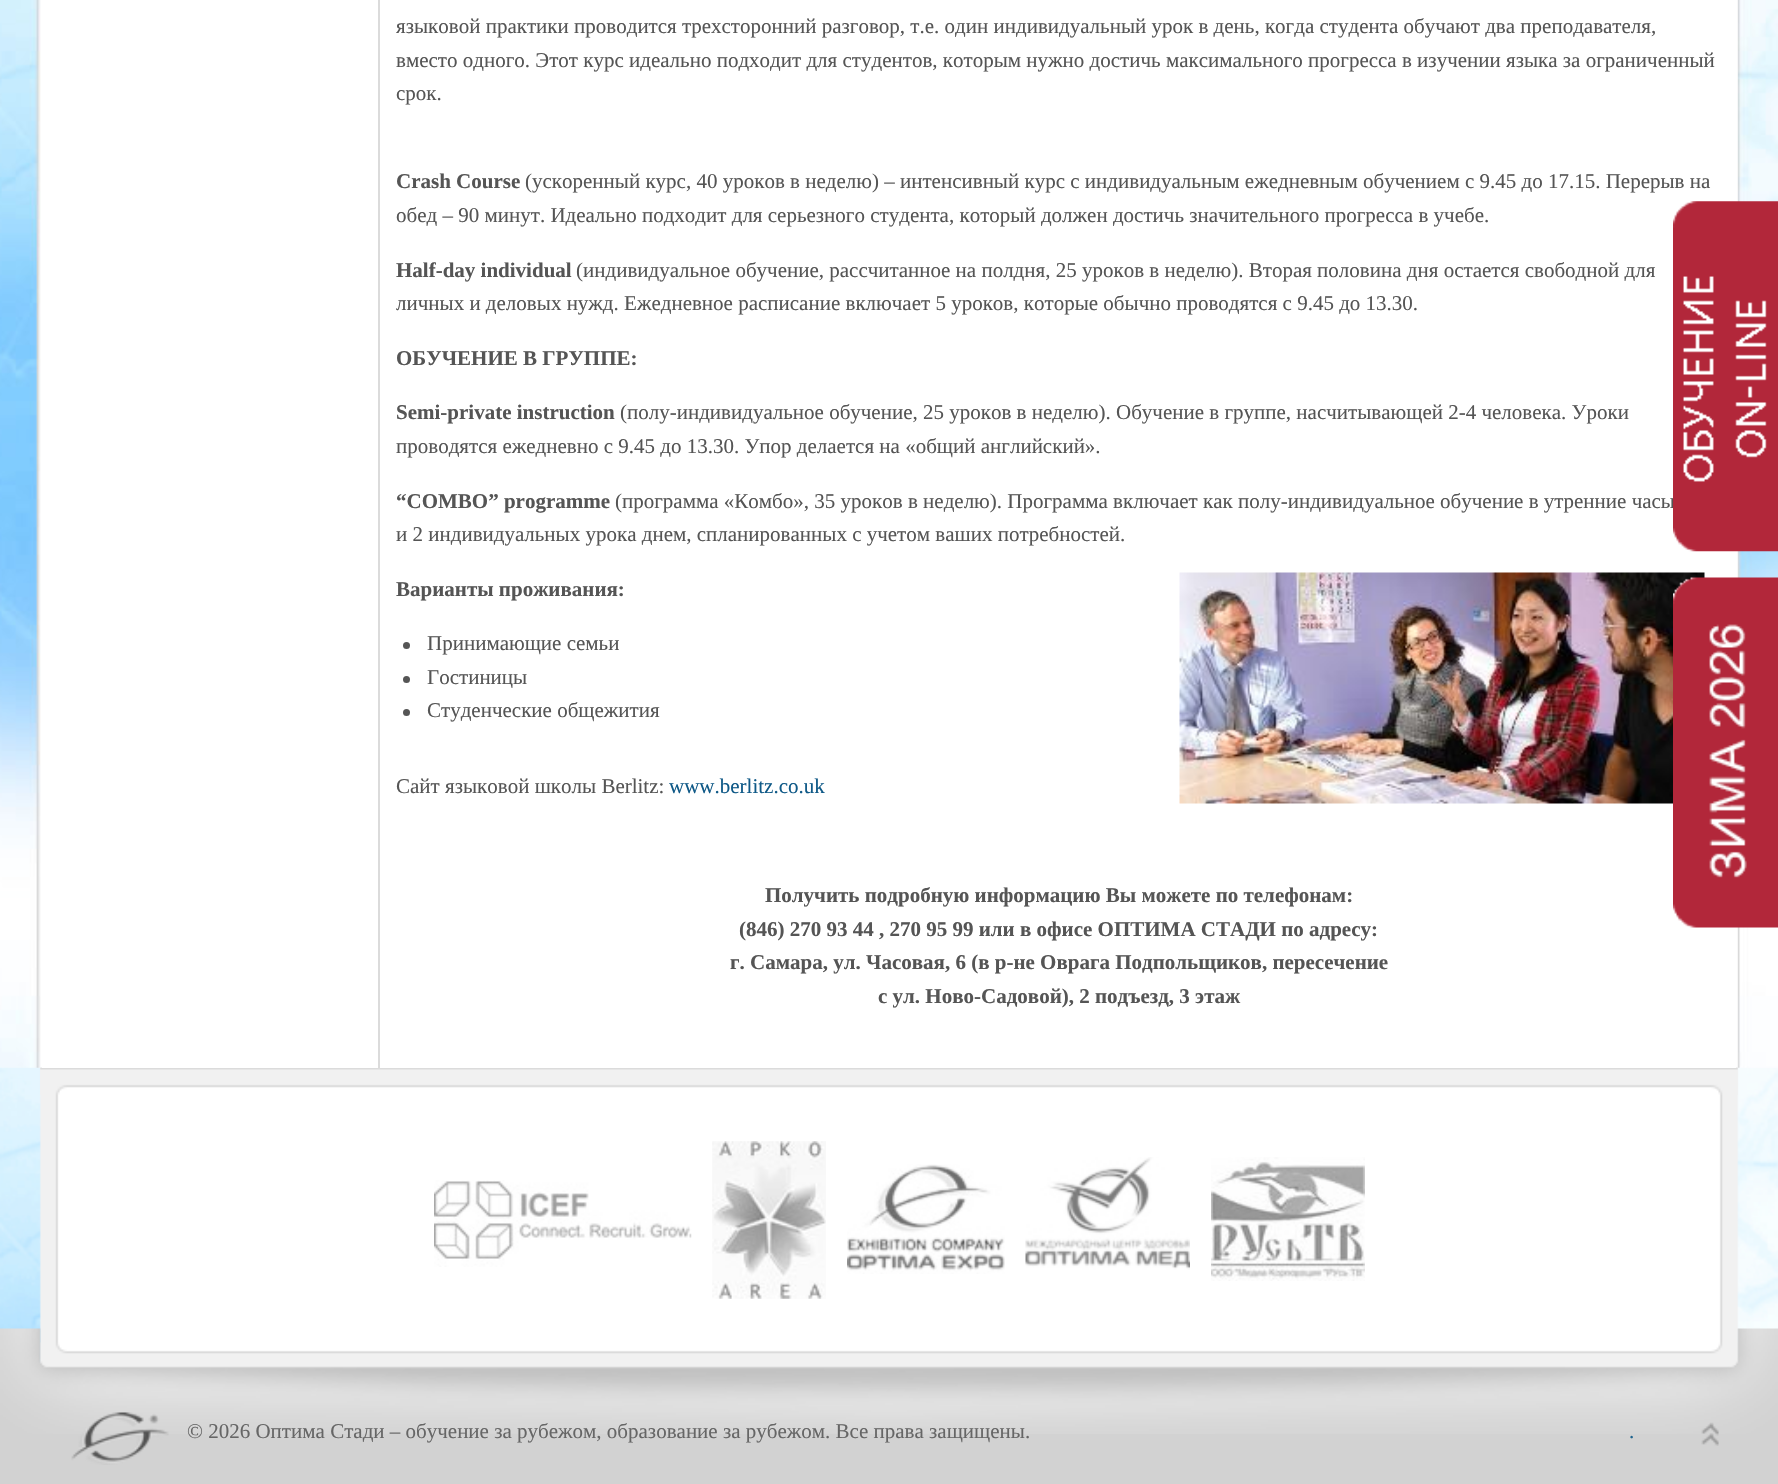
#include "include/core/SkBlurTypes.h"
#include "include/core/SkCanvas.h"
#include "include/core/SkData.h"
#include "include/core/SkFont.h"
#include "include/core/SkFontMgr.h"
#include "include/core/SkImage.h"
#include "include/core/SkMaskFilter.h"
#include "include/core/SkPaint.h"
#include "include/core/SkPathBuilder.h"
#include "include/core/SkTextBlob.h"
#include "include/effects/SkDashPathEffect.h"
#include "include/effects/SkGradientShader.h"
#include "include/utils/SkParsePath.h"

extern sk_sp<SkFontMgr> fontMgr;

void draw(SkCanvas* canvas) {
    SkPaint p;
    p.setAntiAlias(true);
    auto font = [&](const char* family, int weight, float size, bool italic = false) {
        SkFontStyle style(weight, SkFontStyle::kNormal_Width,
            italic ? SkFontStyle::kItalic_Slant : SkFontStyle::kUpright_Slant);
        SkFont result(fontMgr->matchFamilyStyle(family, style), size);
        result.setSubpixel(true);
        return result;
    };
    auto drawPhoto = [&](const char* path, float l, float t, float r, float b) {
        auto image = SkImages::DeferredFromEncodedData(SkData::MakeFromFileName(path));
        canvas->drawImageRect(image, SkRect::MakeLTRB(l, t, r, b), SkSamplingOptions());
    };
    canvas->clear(0xFFD2D2D2);
    drawPhoto("media/1.png", 0, 0, 1778, 1068);
    drawPhoto("media/2.png", 40, 0, 1738, 1068);
    drawPhoto("media/4.png", 0, 1067, 1778, 1364);
    drawPhoto("media/5.png", 40, 1067, 1738, 1095);
    p.setColor(0xFFFFFFFF);
    canvas->drawRect(SkRect::MakeLTRB(42, 0, 1736, 1068), p);
    p.setColor(0xFFDBDBDB);
    canvas->drawRect(SkRect::MakeLTRB(378, 0, 380, 1068), p);
    auto font1 = font("Liberation Serif", 400, 21);
    p.setColor(0xFF555555);
    {
        const struct { const char* s; float x, y; } items[] = {
            {"языковой практики проводится трехсторонний разговор, т.е. один индивидуальный урок в день, когда студента обучают два преподавателя,", 396, 33},
            {"вместо одного. Этот курс идеально подходит для студентов, которым нужно достичь максимального прогресса в изучении языка за ограниченный", 396, 67},
            {"срок.", 396, 100},
        };
        for (auto [s, x, y] : items) {
            canvas->drawString(s, x, y, font1, p);
        }
    }
    auto font2 = font("Liberation Serif", 700, 21);
    canvas->drawString("Crash Course", 396, 188, font2, p);
    canvas->drawString("(ускоренный курс, 40 уроков в неделю) – интенсивный курс с индивидуальным ежедневным обучением с 9.45 до 17.15. Перерыв на", 525, 188, font1, p);
    canvas->drawString("обед – 90 минут. Идеально подходит для серьезного студента, который должен достичь значительного прогресса в учебе.", 396, 222, font1, p);
    canvas->drawString("Half-day individual", 396, 277, font2, p);
    canvas->drawString("(индивидуальное обучение, рассчитанное на полдня, 25 уроков в неделю). Вторая половина дня остается свободной для", 576, 277, font1, p);
    canvas->drawString("личных и деловых нужд. Ежедневное расписание включает 5 уроков, которые обычно проводятся с 9.45 до 13.30.", 396, 310, font1, p);
    canvas->drawString("ОБУЧЕНИЕ В ГРУППЕ:", 396, 365, font2, p);
    canvas->drawString("Semi-private instruction", 396, 419, font2, p);
    canvas->drawString("(полу-индивидуальное обучение, 25 уроков в неделю). Обучение в группе, насчитывающей 2-4 человека. Уроки", 620, 419, font1, p);
    canvas->drawString("проводятся ежедневно с 9.45 до 13.30. Упор делается на «общий английский».", 396, 453, font1, p);
    canvas->drawString("“COMBO” programme", 396, 508, font2, p);
    canvas->drawString("(программа «Комбо», 35 уроков в неделю). Программа включает как полу-индивидуальное обучение в утренние часы", 615, 508, font1, p);
    canvas->drawString("и 2 индивидуальных урока днем, спланированных с учетом ваших потребностей.", 396, 541, font1, p);
    canvas->drawString("Варианты проживания:", 396, 596, font2, p);
    drawPhoto("media/3.png", 1179, 572, 1705, 804);
    canvas->drawCircle(406.5f, 645.5f, 3.5f, p);
    canvas->drawString("Принимающие семьи", 427, 650, font1, p);
    canvas->drawCircle(406.5f, 679.5f, 3.5f, p);
    canvas->drawString("Гостиницы", 427, 684, font1, p);
    canvas->drawCircle(406.5f, 712.5f, 3.5f, p);
    canvas->drawString("Студенческие общежития", 427, 717, font1, p);
    canvas->drawString("Сайт языковой школы Berlitz:", 396, 793, font1, p);
    p.setColor(0xFF0F5987);
    canvas->drawString("www.berlitz.co.uk", 669, 793, font1, p);
    p.setColor(0xFF555555);
    {
        const struct { const char* s; float x, y; } items[] = {
            {"Получить подробную информацию Вы можете по телефонам:", 765, 902},
            {"(846) 270 93 44 , 270 95 99 или в офисе ОПТИМА СТАДИ по адресу:", 739, 936},
            {"г. Самара, ул. Часовая, 6 (в р-не Оврага Подпольщиков, пересечение", 730, 969},
            {"с ул. Ново-Садовой), 2 подъезд, 3 этаж", 878, 1003},
        };
        for (auto [s, x, y] : items) {
            canvas->drawString(s, x, y, font2, p);
        }
    }
    drawPhoto("media/6.png", 40, 1342, 1738, 1368);
    drawPhoto("media/7.png", 434, 1180, 692, 1267);
    drawPhoto("media/8.png", 712, 1141, 826, 1299);
    drawPhoto("media/9.png", 847, 1164, 1005, 1274);
    drawPhoto("media/10.png", 1025, 1157, 1190, 1270);
    drawPhoto("media/11.png", 1211, 1157, 1365, 1281);
    drawPhoto("media/12.png", 0, 1328, 1778, 1434);
    drawPhoto("media/13.png", 71, 1412, 169, 1465);
    p.setColor(0xFF666666);
    canvas->drawString("© 2026 Оптима Стади – обучение за рубежом, образование за рубежом. Все права защищены.", 187, 1438, font1, p);
    p.setColor(0xFF1F648F);
    canvas->drawString(".", 1629, 1438, font1, p);
    drawPhoto("media/14.png", 1701, 1422, 1719, 1446);
    drawPhoto("media/15.png", 1673, 201, 1778, 552);
    drawPhoto("media/16.png", 1673, 577, 1778, 928);
}
